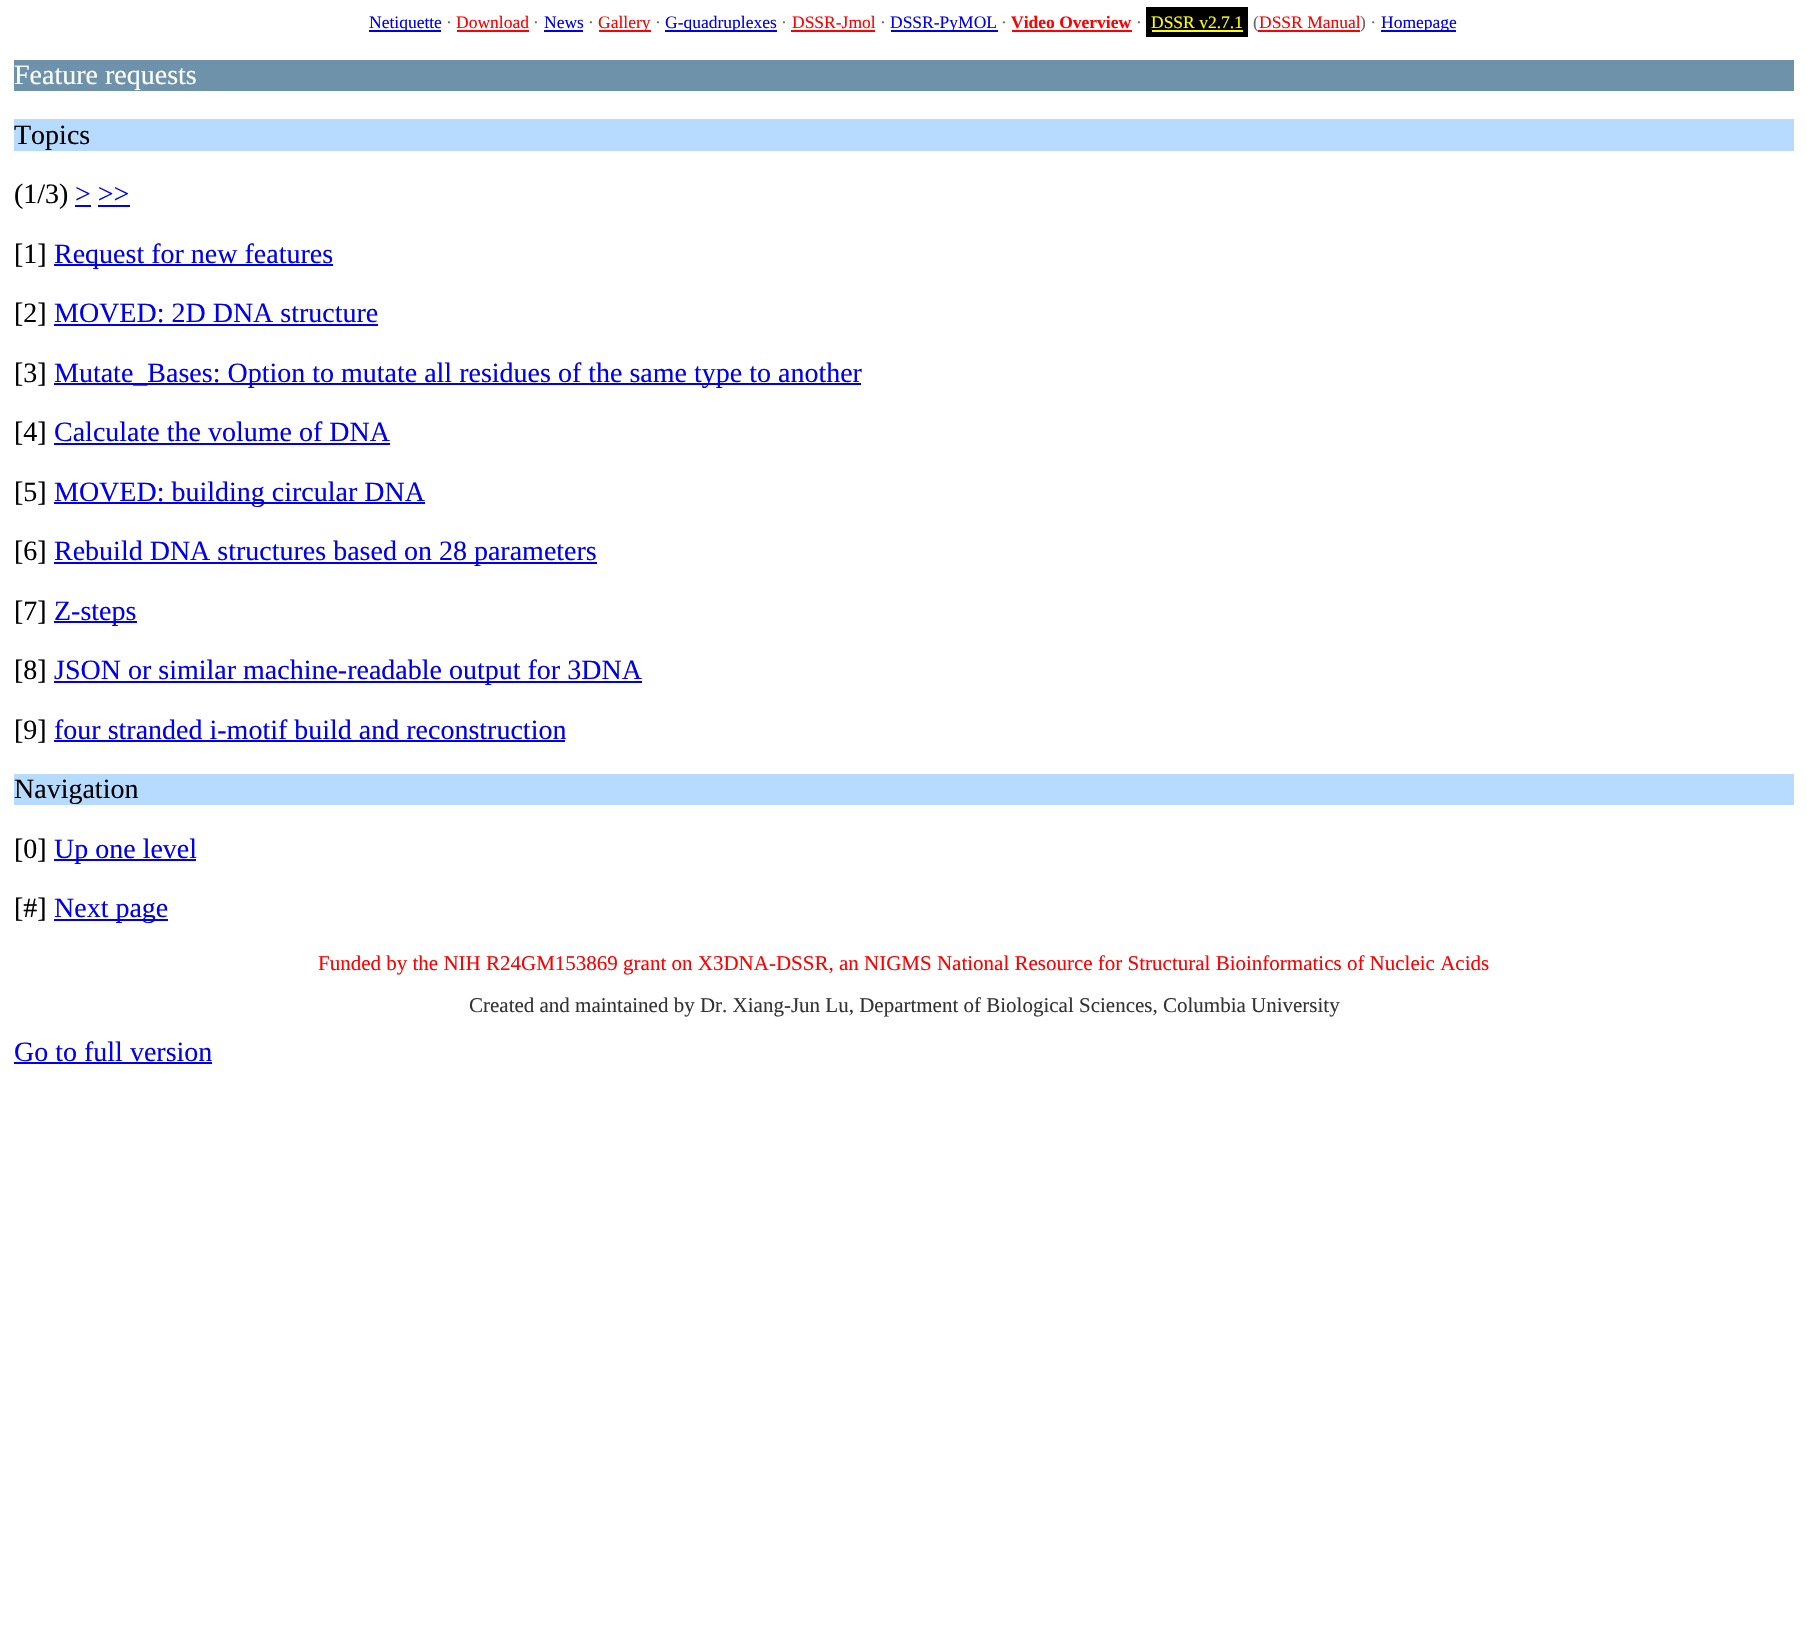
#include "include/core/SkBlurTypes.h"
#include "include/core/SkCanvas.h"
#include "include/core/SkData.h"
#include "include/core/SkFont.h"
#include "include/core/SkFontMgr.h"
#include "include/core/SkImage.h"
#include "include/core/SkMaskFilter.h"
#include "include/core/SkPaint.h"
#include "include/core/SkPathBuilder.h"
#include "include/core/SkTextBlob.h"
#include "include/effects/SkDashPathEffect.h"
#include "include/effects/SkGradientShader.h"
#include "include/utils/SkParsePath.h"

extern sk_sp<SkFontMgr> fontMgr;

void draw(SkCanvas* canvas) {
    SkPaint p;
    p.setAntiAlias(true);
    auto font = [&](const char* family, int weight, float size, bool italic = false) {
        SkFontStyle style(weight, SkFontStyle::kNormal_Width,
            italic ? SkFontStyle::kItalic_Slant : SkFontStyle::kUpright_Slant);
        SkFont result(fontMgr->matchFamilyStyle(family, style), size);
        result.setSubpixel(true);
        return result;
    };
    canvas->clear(0xFFFFFFFF);
    p.setColor(0xFF0000EE);
    canvas->drawRect(SkRect::MakeLTRB(369, 30, 441, 32), p);
    auto font1 = font("Liberation Serif", 400, 17.5f);
    canvas->drawString("Netiquette", 369, 28, font1, p);
    p.setColor(0xFF666666);
    canvas->drawString("·", 446, 28, font1, p);
    p.setColor(0xFFFF0000);
    canvas->drawString("Download", 456, 28, font1, p);
    canvas->drawRect(SkRect::MakeLTRB(457, 30, 529, 32), p);
    p.setColor(0xFF666666);
    canvas->drawString("·", 533, 28, font1, p);
    p.setColor(0xFF0000EE);
    canvas->drawString("News", 544, 28, font1, p);
    canvas->drawRect(SkRect::MakeLTRB(544, 30, 583, 32), p);
    p.setColor(0xFF666666);
    canvas->drawString("·", 588, 28, font1, p);
    p.setColor(0xFFFF0000);
    canvas->drawRect(SkRect::MakeLTRB(599, 30, 651, 32), p);
    canvas->drawString("Gallery", 598, 28, font1, p);
    p.setColor(0xFF666666);
    canvas->drawString("·", 655, 28, font1, p);
    p.setColor(0xFF0000EE);
    canvas->drawRect(SkRect::MakeLTRB(665, 30, 777, 32), p);
    canvas->drawString("G-quadruplexes", 665, 28, font1, p);
    p.setColor(0xFF666666);
    canvas->drawString("·", 781, 28, font1, p);
    p.setColor(0xFFFF0000);
    canvas->drawString("DSSR-Jmol", 792, 28, font1, p);
    canvas->drawRect(SkRect::MakeLTRB(791, 30, 875, 32), p);
    p.setColor(0xFF666666);
    canvas->drawString("·", 880, 28, font1, p);
    p.setColor(0xFF0000EE);
    canvas->drawRect(SkRect::MakeLTRB(891, 30, 998, 32), p);
    canvas->drawString("DSSR-PyMOL", 890, 28, font1, p);
    p.setColor(0xFF666666);
    canvas->drawString("·", 1001, 28, font1, p);
    auto font2 = font("Liberation Serif", 700, 17.5f);
    p.setColor(0xFFFF0000);
    canvas->drawString("Video Overview", 1011, 28, font2, p);
    canvas->drawRect(SkRect::MakeLTRB(1012, 30, 1132, 32), p);
    p.setColor(0xFF666666);
    canvas->drawString("·", 1136, 28, font1, p);
    p.setColor(0xFF000000);
    canvas->drawRect(SkRect::MakeLTRB(1146, 7, 1248, 37), p);
    p.setColor(0xFFFFFF00);
    canvas->drawString("DSSR v2.7.1", 1151, 28, font1, p);
    canvas->drawRect(SkRect::MakeLTRB(1152, 30, 1243, 32), p);
    p.setColor(0xFF666666);
    canvas->drawString("(", 1253, 28, font1, p);
    p.setColor(0xFFFF0000);
    canvas->drawString("DSSR Manual", 1259, 28, font1, p);
    canvas->drawRect(SkRect::MakeLTRB(1258, 30, 1360, 32), p);
    p.setColor(0xFF666666);
    canvas->drawString(") ·", 1360, 28, font1, p);
    p.setColor(0xFF0000EE);
    canvas->drawRect(SkRect::MakeLTRB(1381, 30, 1456, 32), p);
    canvas->drawString("Homepage", 1381, 28, font1, p);
    p.setColor(0xFF6D92AA);
    canvas->drawRect(SkRect::MakeLTRB(14, 60, 1794, 91), p);
    auto font3 = font("Liberation Serif", 400, 28);
    p.setColor(0xFFFFFFFF);
    canvas->drawString("Feature requests", 14, 84, font3, p);
    p.setColor(0xFFB6DBFF);
    canvas->drawRect(SkRect::MakeLTRB(14, 119, 1794, 151), p);
    p.setColor(0xFF000000);
    canvas->drawString("Topics", 14, 144, font3, p);
    canvas->drawString("(1/3)", 14, 203, font3, p);
    p.setColor(0xFF0000EE);
    canvas->drawString("> >>", 75, 203, font3, p);
    canvas->drawRect(SkRect::MakeLTRB(75, 205, 91, 207), p);
    canvas->drawRect(SkRect::MakeLTRB(98, 205, 130, 207), p);
    p.setColor(0xFF000000);
    canvas->drawString("[1]", 14, 263, font3, p);
    p.setColor(0xFF0000EE);
    canvas->drawRect(SkRect::MakeLTRB(54, 264, 333, 266), p);
    canvas->drawString("Request for new features", 54, 263, font3, p);
    p.setColor(0xFF000000);
    canvas->drawString("[2]", 14, 322, font3, p);
    p.setColor(0xFF0000EE);
    canvas->drawString("MOVED: 2D DNA structure", 54, 322, font3, p);
    canvas->drawRect(SkRect::MakeLTRB(54, 324, 378, 326), p);
    p.setColor(0xFF000000);
    canvas->drawString("[3]", 14, 382, font3, p);
    p.setColor(0xFF0000EE);
    canvas->drawRect(SkRect::MakeLTRB(54, 383, 861, 385), p);
    canvas->drawString("Mutate_Bases: Option to mutate all residues of the same type to another", 54, 382, font3, p);
    p.setColor(0xFF000000);
    canvas->drawString("[4]", 14, 441, font3, p);
    p.setColor(0xFF0000EE);
    canvas->drawString("Calculate the volume of DNA", 54, 441, font3, p);
    canvas->drawRect(SkRect::MakeLTRB(54, 443, 390, 445), p);
    p.setColor(0xFF000000);
    canvas->drawString("[5]", 14, 501, font3, p);
    p.setColor(0xFF0000EE);
    canvas->drawRect(SkRect::MakeLTRB(54, 502, 425, 504), p);
    canvas->drawString("MOVED: building circular DNA", 54, 501, font3, p);
    p.setColor(0xFF000000);
    canvas->drawString("[6]", 14, 560, font3, p);
    p.setColor(0xFF0000EE);
    canvas->drawRect(SkRect::MakeLTRB(54, 562, 597, 564), p);
    canvas->drawString("Rebuild DNA structures based on 28 parameters", 54, 560, font3, p);
    p.setColor(0xFF000000);
    canvas->drawString("[7]", 14, 620, font3, p);
    p.setColor(0xFF0000EE);
    canvas->drawRect(SkRect::MakeLTRB(54, 621, 137, 623), p);
    canvas->drawString("Z-steps", 54, 620, font3, p);
    p.setColor(0xFF000000);
    canvas->drawString("[8]", 14, 679, font3, p);
    p.setColor(0xFF0000EE);
    canvas->drawRect(SkRect::MakeLTRB(54, 681, 642, 683), p);
    canvas->drawString("JSON or similar machine-readable output for 3DNA", 54, 679, font3, p);
    p.setColor(0xFF000000);
    canvas->drawString("[9]", 14, 739, font3, p);
    p.setColor(0xFF0000EE);
    canvas->drawString("four stranded i-motif build and reconstruction", 54, 739, font3, p);
    canvas->drawRect(SkRect::MakeLTRB(54, 740, 565, 742), p);
    p.setColor(0xFFB6DBFF);
    canvas->drawRect(SkRect::MakeLTRB(14, 774, 1794, 805), p);
    p.setColor(0xFF000000);
    canvas->drawString("Navigation", 14, 798, font3, p);
    canvas->drawString("[0]", 14, 858, font3, p);
    p.setColor(0xFF0000EE);
    canvas->drawRect(SkRect::MakeLTRB(54, 859, 196, 861), p);
    canvas->drawString("Up one level", 54, 858, font3, p);
    p.setColor(0xFF000000);
    canvas->drawString("[#]", 14, 917, font3, p);
    p.setColor(0xFF0000EE);
    canvas->drawRect(SkRect::MakeLTRB(54, 919, 168, 921), p);
    canvas->drawString("Next page", 54, 917, font3, p);
    auto font4 = font("Liberation Serif", 400, 21);
    p.setColor(0xFFFF0000);
    canvas->drawString("Funded by the NIH R24GM153869 grant on X3DNA-DSSR, an NIGMS National Resource for Structural Bioinformatics of Nucleic Acids", 318, 970, font4, p);
    p.setColor(0xFF333333);
    canvas->drawString("Created and maintained by Dr. Xiang-Jun Lu, Department of Biological Sciences, Columbia University", 469, 1012, font4, p);
    p.setColor(0xFF0000EE);
    canvas->drawString("Go to full version", 14, 1061, font3, p);
    canvas->drawRect(SkRect::MakeLTRB(14, 1062, 212, 1064), p);
}
